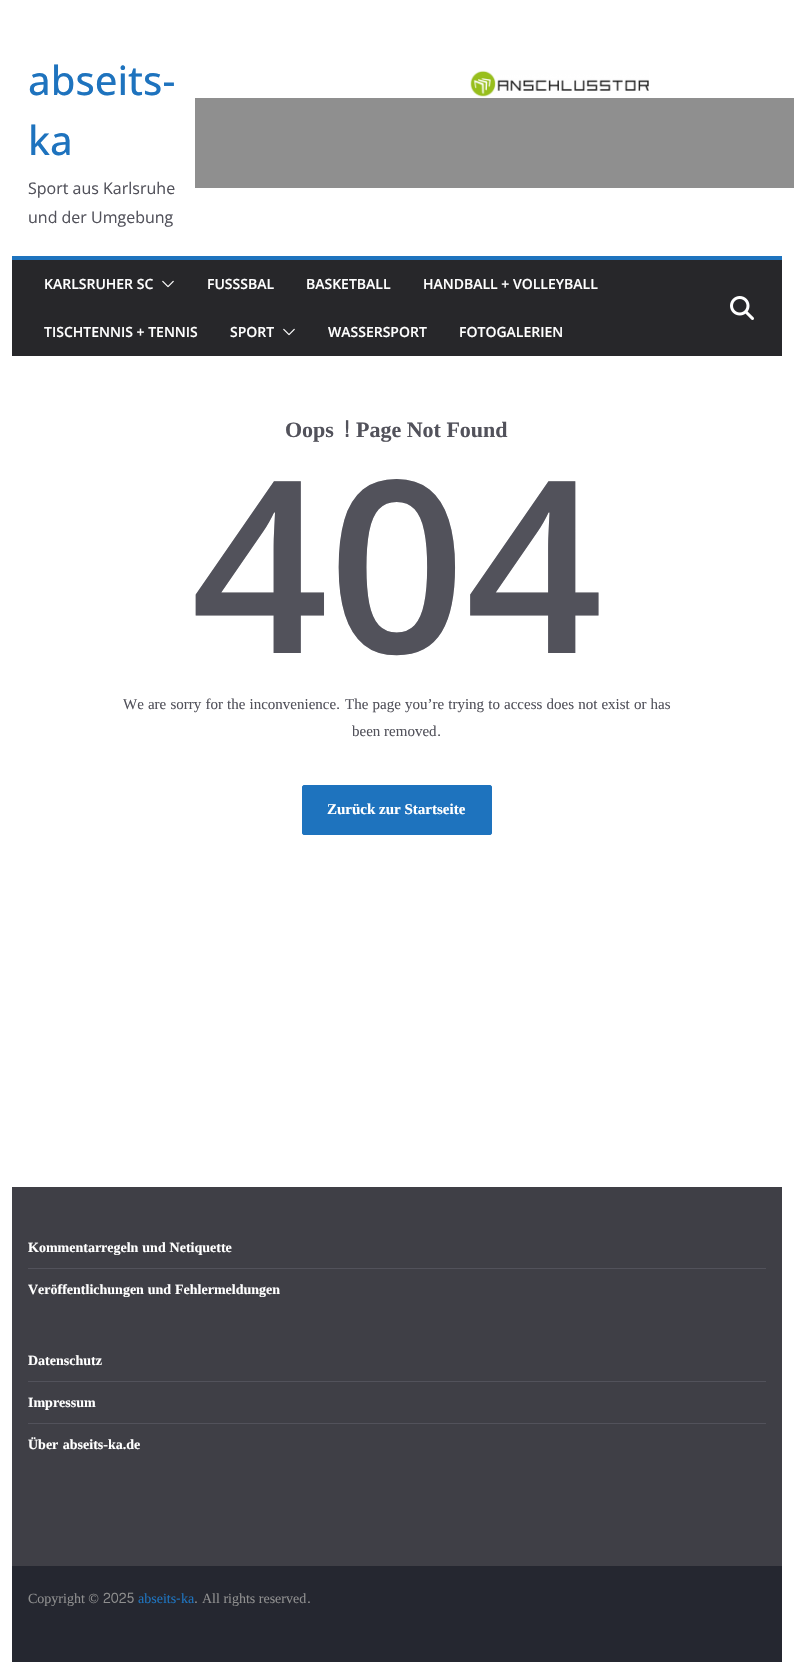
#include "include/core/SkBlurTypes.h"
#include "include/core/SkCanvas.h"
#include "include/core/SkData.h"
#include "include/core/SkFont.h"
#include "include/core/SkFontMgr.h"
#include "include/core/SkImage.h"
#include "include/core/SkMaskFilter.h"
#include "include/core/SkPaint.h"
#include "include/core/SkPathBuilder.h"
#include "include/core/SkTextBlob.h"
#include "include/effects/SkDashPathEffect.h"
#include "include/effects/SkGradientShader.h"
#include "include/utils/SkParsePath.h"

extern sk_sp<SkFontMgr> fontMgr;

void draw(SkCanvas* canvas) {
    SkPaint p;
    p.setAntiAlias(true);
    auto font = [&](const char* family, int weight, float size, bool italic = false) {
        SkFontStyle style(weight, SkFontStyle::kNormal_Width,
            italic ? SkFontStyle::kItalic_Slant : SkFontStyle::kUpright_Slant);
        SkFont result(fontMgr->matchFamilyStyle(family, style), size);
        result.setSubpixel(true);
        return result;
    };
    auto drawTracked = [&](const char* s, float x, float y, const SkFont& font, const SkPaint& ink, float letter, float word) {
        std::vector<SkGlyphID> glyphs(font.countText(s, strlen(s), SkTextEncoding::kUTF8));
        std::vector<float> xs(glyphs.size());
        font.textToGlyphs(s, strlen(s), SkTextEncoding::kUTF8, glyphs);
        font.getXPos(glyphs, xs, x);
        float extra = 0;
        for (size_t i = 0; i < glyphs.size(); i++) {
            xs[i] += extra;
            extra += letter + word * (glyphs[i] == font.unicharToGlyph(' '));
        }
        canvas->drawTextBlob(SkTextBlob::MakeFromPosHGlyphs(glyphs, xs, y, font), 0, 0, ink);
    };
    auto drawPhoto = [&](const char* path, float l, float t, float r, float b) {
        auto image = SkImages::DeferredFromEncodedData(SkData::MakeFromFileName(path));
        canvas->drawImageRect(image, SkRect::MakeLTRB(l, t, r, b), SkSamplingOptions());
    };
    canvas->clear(0xFFFFFFFF);
    auto font1 = font("Open Sans", 500, 40);
    p.setColor(0xFF1E73BE);
    canvas->drawString("abseits-", 28, 95, font1, p);
    canvas->drawString("ka", 28, 155, font1, p);
    auto font2 = font("Open Sans", 400, 16);
    p.setColor(0xFF52525B);
    canvas->drawString("Sport aus Karlsruhe", 28, 194, font2, p);
    canvas->drawString("und der Umgebung", 28, 223, font2, p);
    drawPhoto("media/1.png", 470, 70, 649, 97);
    {
        const struct { float l, t, r, b; SkColor color; } items[] = {
            {195, 98, 794, 188, 0xFF8F8F8F},
            {12, 260, 782, 356, 0xFF27272A},
            {12, 256, 782, 260, 0xFF1E73BE},
        };
        for (auto [l, t, r, b, color] : items) {
            p.setColor(color);
            canvas->drawRect(SkRect::MakeLTRB(l, t, r, b), p);
        }
    }
    auto font3 = font("Open Sans", 600, 14);
    p.setColor(0xFFFFFFFF);
    canvas->drawString("KARLSRUHER SC", 44, 289, font3, p);
    drawPhoto("media/2.png", 162, 280, 174, 288);
    {
        const struct { const char* s; float x, y; } items[] = {
            {"FUSSSBAL", 207, 289},
            {"BASKETBALL", 306, 289},
            {"HANDBALL + VOLLEYBALL", 423, 289},
            {"TISCHTENNIS + TENNIS", 44, 337},
            {"SPORT", 230, 337},
        };
        for (auto [s, x, y] : items) {
            canvas->drawString(s, x, y, font3, p);
        }
    }
    drawPhoto("media/2.png", 283, 328, 295, 336);
    canvas->drawString("WASSERSPORT", 328, 337, font3, p);
    canvas->drawString("FOTOGALERIEN", 459, 337, font3, p);
    drawPhoto("media/3.png", 730, 296, 754, 320);
    auto font4 = font("Liberation Serif", 700, 22);
    p.setColor(0xFF52525B);
    canvas->drawString("Oops", 285, 437, font4, p);
    auto font5 = font("Content", 700, 22);
    canvas->drawString("!", 341, 437, font5, p);
    canvas->drawString("Page Not Found", 356, 437, font4, p);
    auto font6 = font("Open Sans", 600, 240);
    canvas->drawString("404", 191, 653, font6, p);
    auto font7 = font("Liberation Serif", 400, 15);
    drawTracked("We are sorry for the inconvenience", 123, 709, font7, p, 0, 0.4f);
    auto font8 = font("Content", 400, 15);
    canvas->drawString(".", 336, 709, font8, p);
    drawTracked("The page you’re trying to access does not exist or has", 345, 709, font7, p, 0, 0.4f);
    canvas->drawString("been removed", 352, 736, font7, p);
    canvas->drawString(".", 437, 736, font8, p);
    p.setColor(0xFF1E73BE);
    canvas->drawRoundRect(SkRect::MakeLTRB(302.5f, 785.5f, 491.5f, 834.5f), 1.5f, 1.5f, p);
    p.setStyle(SkPaint::kStroke_Style);
    p.setStrokeWidth(1);
    canvas->drawRoundRect(SkRect::MakeLTRB(302.5f, 785.5f, 491.5f, 834.5f), 1.5f, 1.5f, p);
    auto font9 = font("Liberation Serif", 700, 15);
    p.setStyle(SkPaint::kFill_Style);
    p.setColor(0xFFFFFFFF);
    canvas->drawString("Zurück zur Startseite", 327, 814, font9, p);
    p.setColor(0xFF3F3F46);
    canvas->drawRect(SkRect::MakeLTRB(12, 1187, 782, 1566), p);
    p.setColor(0xFF52525B);
    canvas->drawRect(SkRect::MakeLTRB(28, 1268, 766, 1269), p);
    auto font10 = font("Liberation Serif", 700, 14);
    p.setColor(0xFFFFFFFF);
    drawTracked("Kommentarregeln und Netiquette", 28, 1252, font10, p, 0, 0.4f);
    drawTracked("Veröffentlichungen und Fehlermeldungen", 28, 1294, font10, p, 0, 0.4f);
    p.setColor(0xFF52525B);
    canvas->drawRect(SkRect::MakeLTRB(28, 1381, 766, 1382), p);
    p.setColor(0xFFFFFFFF);
    canvas->drawString("Datenschutz", 28, 1365, font10, p);
    p.setColor(0xFF52525B);
    canvas->drawRect(SkRect::MakeLTRB(28, 1423, 766, 1424), p);
    p.setColor(0xFFFFFFFF);
    canvas->drawString("Impressum", 28, 1407, font10, p);
    drawTracked("Über abseits-ka.de", 28, 1449, font10, p, 0, 1);
    p.setColor(0xFF252730);
    canvas->drawRect(SkRect::MakeLTRB(12, 1566, 782, 1662), p);
    auto font11 = font("Liberation Serif", 400, 14);
    p.setColor(0xFF8F8F8F);
    canvas->drawString("Copyright ©", 28, 1603, font11, p);
    auto font12 = font("Content", 400, 14);
    canvas->drawString("2025", 103, 1603, font12, p);
    p.setColor(0xFF1E73BE);
    canvas->drawString("abseits", 138, 1603, font11, p);
    canvas->drawString("-", 176, 1603, font12, p);
    canvas->drawString("ka", 181, 1603, font11, p);
    p.setColor(0xFF8F8F8F);
    canvas->drawString("All rights reserved", 202, 1603, font11, p);
    canvas->drawString(".", 194, 1603, font12, p);
    canvas->drawString(".", 307, 1603, font12, p);
}
